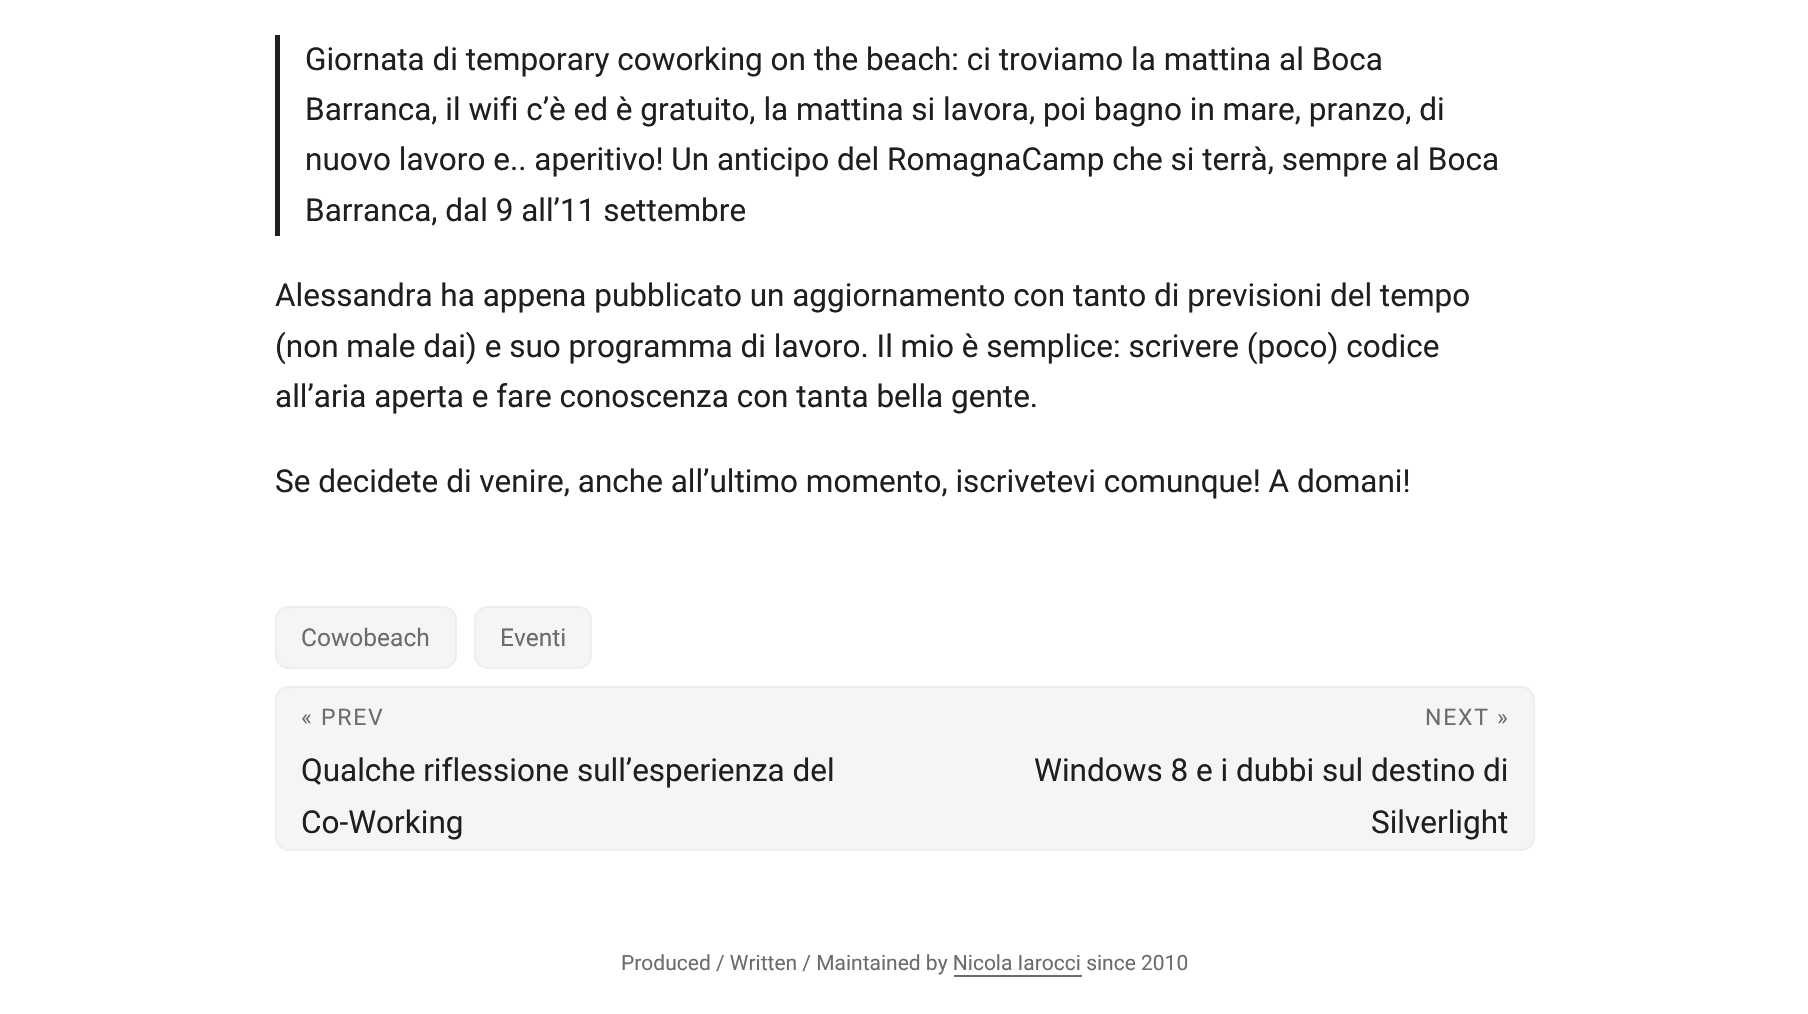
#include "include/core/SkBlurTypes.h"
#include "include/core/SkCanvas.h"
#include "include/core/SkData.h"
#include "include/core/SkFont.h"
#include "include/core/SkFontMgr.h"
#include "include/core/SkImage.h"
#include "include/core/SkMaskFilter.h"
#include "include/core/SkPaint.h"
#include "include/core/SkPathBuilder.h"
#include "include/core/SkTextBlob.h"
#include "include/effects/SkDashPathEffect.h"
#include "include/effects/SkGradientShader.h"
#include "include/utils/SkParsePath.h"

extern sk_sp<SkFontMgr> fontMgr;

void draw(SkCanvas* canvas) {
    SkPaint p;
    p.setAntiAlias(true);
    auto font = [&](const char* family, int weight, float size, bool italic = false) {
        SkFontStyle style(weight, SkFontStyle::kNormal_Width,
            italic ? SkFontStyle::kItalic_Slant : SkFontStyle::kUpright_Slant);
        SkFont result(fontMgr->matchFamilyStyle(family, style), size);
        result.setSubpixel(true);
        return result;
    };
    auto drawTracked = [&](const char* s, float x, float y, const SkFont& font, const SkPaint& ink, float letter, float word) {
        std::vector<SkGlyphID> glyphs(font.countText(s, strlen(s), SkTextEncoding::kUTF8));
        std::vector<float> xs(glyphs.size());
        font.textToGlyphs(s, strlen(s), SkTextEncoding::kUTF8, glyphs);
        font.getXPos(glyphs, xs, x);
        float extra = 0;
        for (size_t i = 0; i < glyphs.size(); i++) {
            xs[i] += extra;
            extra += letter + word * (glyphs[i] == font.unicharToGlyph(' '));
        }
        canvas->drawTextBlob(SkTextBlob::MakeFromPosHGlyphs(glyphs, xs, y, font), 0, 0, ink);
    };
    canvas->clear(0xFFFFFFFF);
    p.setColor(0xFF1E1E1E);
    canvas->drawRect(SkRect::MakeLTRB(275, 35, 280, 236), p);
    auto font1 = font("Roboto", 400, 31.5f);
    p.setColor(0xFF1F1F1F);
    {
        const struct { const char* s; float x, y; } items[] = {
            {"Giornata di temporary coworking on the beach: ci troviamo la mattina al Boca", 305, 70},
            {"Barranca, il wifi c’è ed è gratuito, la mattina si lavora, poi bagno in mare, pranzo, di", 305, 120},
            {"nuovo lavoro e.. aperitivo! Un anticipo del RomagnaCamp che si terrà, sempre al Boca", 305, 170},
            {"Barranca, dal 9 all’11 settembre", 305, 221},
            {"Alessandra ha appena pubblicato un aggiornamento con tanto di previsioni del tempo", 275, 306},
            {"(non male dai) e suo programma di lavoro. Il mio è semplice: scrivere (poco) codice", 275, 357},
            {"all’aria aperta e fare conoscenza con tanta bella gente.", 275, 407},
            {"Se decidete di venire, anche all’ultimo momento, iscrivetevi comunque! A domani!", 275, 492},
        };
        for (auto [s, x, y] : items) {
            canvas->drawString(s, x, y, font1, p);
        }
    }
    p.setColor(0xFFF5F5F5);
    canvas->drawRoundRect(SkRect::MakeLTRB(276, 607, 456, 668), 13, 13, p);
    p.setStyle(SkPaint::kStroke_Style);
    p.setStrokeWidth(2);
    p.setColor(0xFFEEEEEE);
    canvas->drawRoundRect(SkRect::MakeLTRB(276, 607, 456, 668), 13, 13, p);
    auto font2 = font("Roboto", 400, 24.5f);
    p.setStyle(SkPaint::kFill_Style);
    p.setColor(0xFF6C6C6C);
    canvas->drawString("Cowobeach", 301, 646, font2, p);
    p.setColor(0xFFF5F5F5);
    canvas->drawRoundRect(SkRect::MakeLTRB(475, 607, 591, 668), 13, 13, p);
    p.setStyle(SkPaint::kStroke_Style);
    p.setColor(0xFFEEEEEE);
    canvas->drawRoundRect(SkRect::MakeLTRB(475, 607, 591, 668), 13, 13, p);
    p.setStyle(SkPaint::kFill_Style);
    p.setColor(0xFF6C6C6C);
    canvas->drawString("Eventi", 500, 646, font2, p);
    p.setColor(0xFFF5F5F5);
    canvas->drawRoundRect(SkRect::MakeLTRB(276, 687, 1534, 850), 13, 13, p);
    p.setStyle(SkPaint::kStroke_Style);
    p.setColor(0xFFEEEEEE);
    canvas->drawRoundRect(SkRect::MakeLTRB(276, 687, 1534, 850), 13, 13, p);
    auto font3 = font("Roboto", 400, 23);
    p.setStyle(SkPaint::kFill_Style);
    p.setColor(0xFF6C6C6C);
    drawTracked("« PREV", 301, 725, font3, p, 1.75f, 0);
    p.setColor(0xFF1F1F1F);
    canvas->drawString("Qualche riflessione sull’esperienza del", 301, 781, font1, p);
    canvas->drawString("Co-Working", 301, 833, font1, p);
    p.setColor(0xFF6C6C6C);
    drawTracked("NEXT »", 1425, 725, font3, p, 1.75f, 0);
    p.setColor(0xFF1F1F1F);
    canvas->drawString("Windows 8 e i dubbi sul destino di", 1034, 781, font1, p);
    canvas->drawString("Silverlight", 1371, 833, font1, p);
    auto font4 = font("Roboto", 400, 21);
    p.setColor(0xFF6C6C6C);
    canvas->drawString("Produced / Written / Maintained by Nicola Iarocci since 2010", 621, 970, font4, p);
    canvas->drawRect(SkRect::MakeLTRB(954, 975, 1082, 977), p);
}
